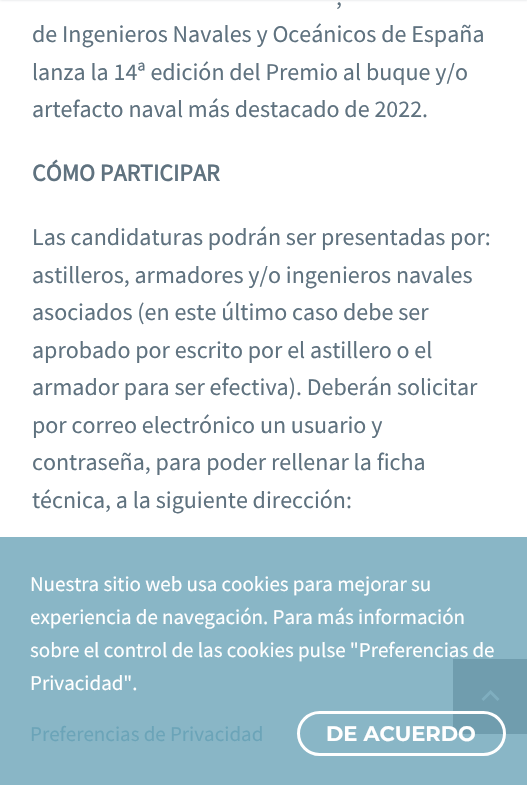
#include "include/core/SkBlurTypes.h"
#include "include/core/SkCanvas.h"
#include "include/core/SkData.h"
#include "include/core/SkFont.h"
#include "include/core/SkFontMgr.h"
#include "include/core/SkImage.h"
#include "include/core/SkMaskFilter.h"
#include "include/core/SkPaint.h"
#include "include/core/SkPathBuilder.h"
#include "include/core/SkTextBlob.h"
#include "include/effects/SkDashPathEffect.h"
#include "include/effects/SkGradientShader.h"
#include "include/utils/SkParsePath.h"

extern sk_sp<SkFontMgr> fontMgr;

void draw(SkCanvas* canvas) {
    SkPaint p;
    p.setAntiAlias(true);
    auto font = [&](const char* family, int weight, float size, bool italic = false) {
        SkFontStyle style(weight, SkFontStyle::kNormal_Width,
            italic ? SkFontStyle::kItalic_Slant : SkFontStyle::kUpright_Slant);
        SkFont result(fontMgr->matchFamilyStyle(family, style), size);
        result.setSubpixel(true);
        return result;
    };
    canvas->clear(0xFFFFFFFF);
    p.setColor(0x33384554);
    p.setMaskFilter(SkMaskFilter::MakeBlur(kNormal_SkBlurStyle, 1.5f));
    canvas->drawRect(SkRect::MakeLTRB(0, -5, 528, 0), p);
    p.setMaskFilter(nullptr);
    auto font1 = font("Source Sans Pro", 400, 24);
    p.setColor(0xFF5F727F);
    {
        const struct { const char* s; float x, y; } items[] = {
            {",", 336, 5},
            {"de Ingenieros Navales y Oceánicos de España", 32, 42},
            {"lanza la 14ª edición del Premio al buque y/o", 32, 80},
            {"artefacto naval más destacado de 2022.", 32, 117},
        };
        for (auto [s, x, y] : items) {
            canvas->drawString(s, x, y, font1, p);
        }
    }
    auto font2 = font("Source Sans Pro", 700, 24);
    canvas->drawString("CÓMO PARTICIPAR", 32, 181, font2, p);
    {
        const struct { const char* s; float x, y; } items[] = {
            {"Las candidaturas podrán ser presentadas por:", 32, 245},
            {"astilleros, armadores y/o ingenieros navales", 32, 283},
            {"asociados (en este último caso debe ser", 32, 320},
            {"aprobado por escrito por el astillero o el", 32, 358},
            {"armador para ser efectiva). Deberán solicitar", 32, 395},
            {"por correo electrónico un usuario y", 32, 433},
            {"contraseña, para poder rellenar la ficha", 32, 470},
            {"técnica, a la siguiente dirección:", 32, 508},
        };
        for (auto [s, x, y] : items) {
            canvas->drawString(s, x, y, font1, p);
        }
    }
    p.setColor(0x8006060F);
    canvas->drawRect(SkRect::MakeLTRB(453, 659, 527, 734), p);
    p.setColor(0xFFCCD4DA);
    canvas->drawPath(SkPathBuilder().moveTo(483.5f, 701).lineTo(490.5f, 694).lineTo(497.5f, 701).lineTo(499.5f, 699).lineTo(490.5f, 690).lineTo(481.5f, 699).close().detach(), p);
    p.setColor(0xCC6BA4B8);
    canvas->drawRect(SkRect::MakeLTRB(0, 537, 527, 785), p);
    auto font3 = font("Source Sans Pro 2", 400, 21);
    p.setColor(0xFFFFFFFF);
    {
        const struct { const char* s; float x, y; } items[] = {
            {"Nuestra sitio web usa cookies para mejorar su", 30, 591},
            {"experiencia de navegación. Para más información", 30, 624},
            {"sobre el control de las cookies pulse \"Preferencias de", 30, 657},
            {"Privacidad\".", 30, 690},
        };
        for (auto [s, x, y] : items) {
            canvas->drawString(s, x, y, font3, p);
        }
    }
    p.setColor(0xFF6BA4B8);
    canvas->drawString("Preferencias de Privacidad", 30, 741, font3, p);
    p.setStyle(SkPaint::kStroke_Style);
    p.setStrokeWidth(3);
    p.setColor(0xFFFFFFFF);
    canvas->drawRoundRect(SkRect::MakeLTRB(298.5f, 712.5f, 504.5f, 754.5f), 21, 21, p);
    auto font4 = font("Montserrat", 700, 21);
    p.setStyle(SkPaint::kFill_Style);
    canvas->drawString("DE ACUERDO", 326, 741, font4, p);
}
